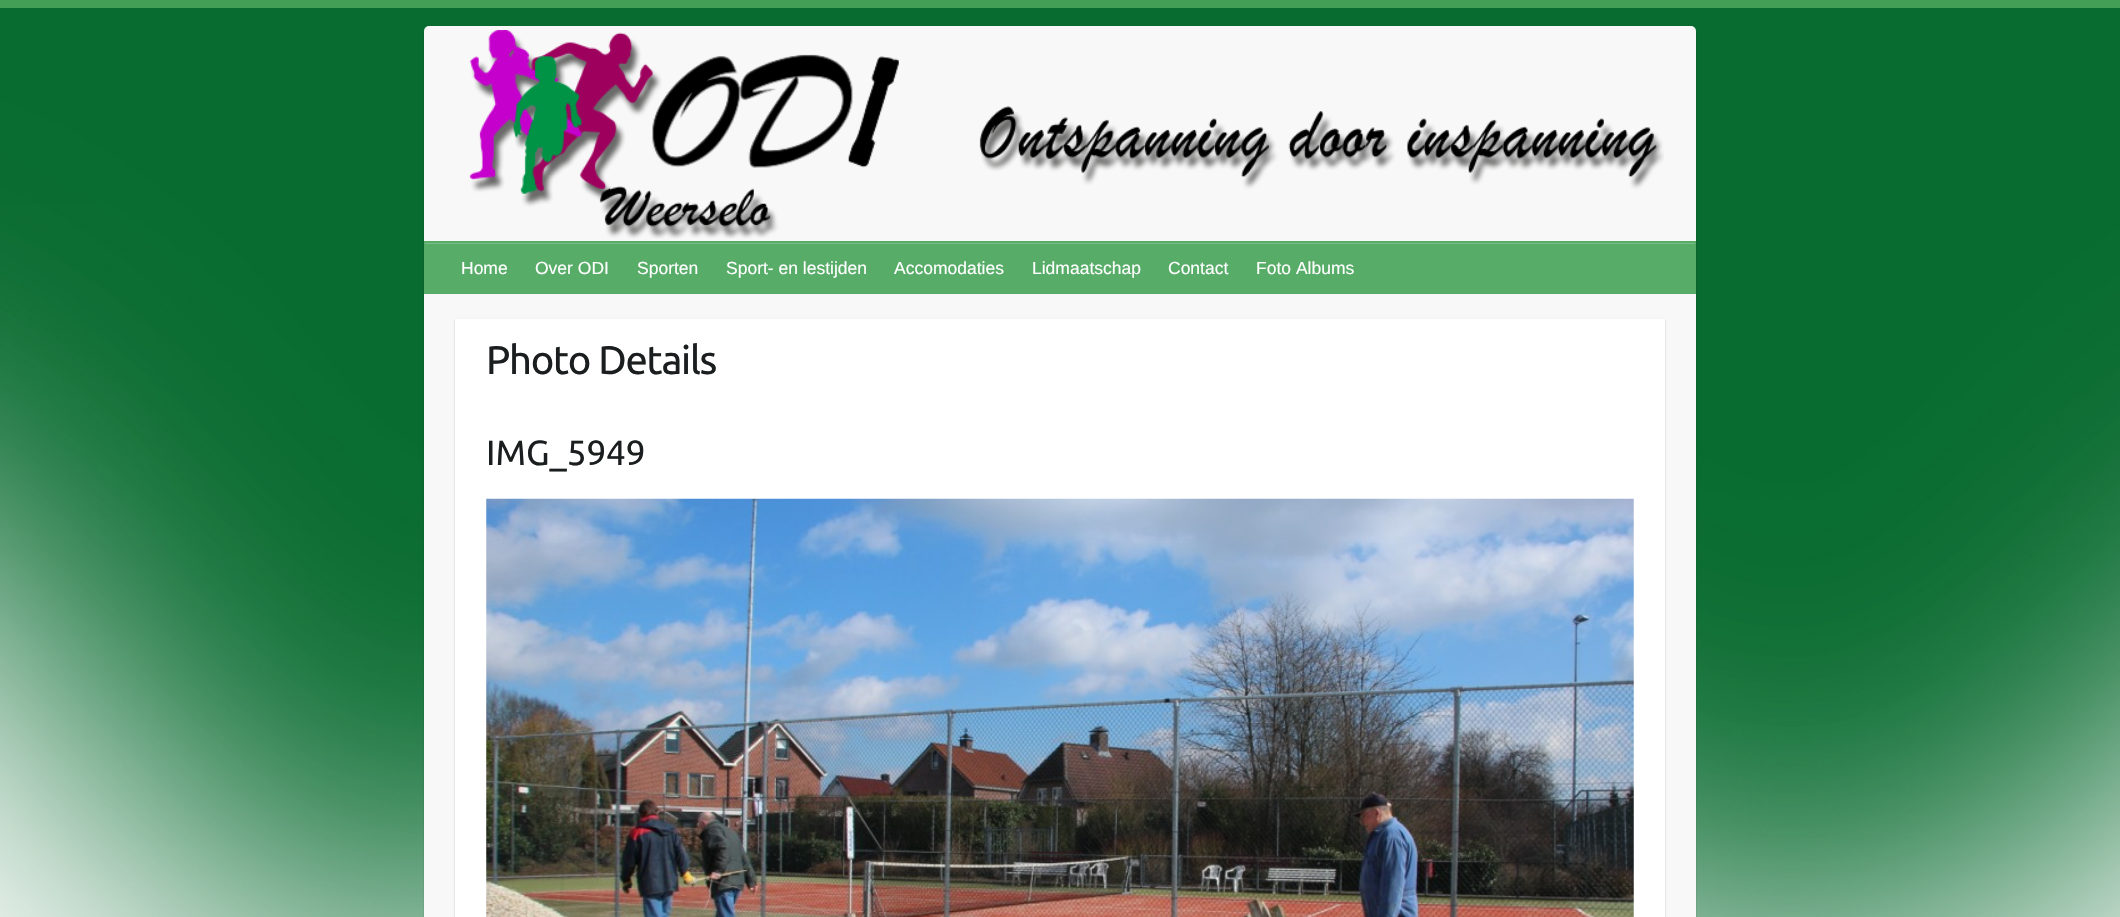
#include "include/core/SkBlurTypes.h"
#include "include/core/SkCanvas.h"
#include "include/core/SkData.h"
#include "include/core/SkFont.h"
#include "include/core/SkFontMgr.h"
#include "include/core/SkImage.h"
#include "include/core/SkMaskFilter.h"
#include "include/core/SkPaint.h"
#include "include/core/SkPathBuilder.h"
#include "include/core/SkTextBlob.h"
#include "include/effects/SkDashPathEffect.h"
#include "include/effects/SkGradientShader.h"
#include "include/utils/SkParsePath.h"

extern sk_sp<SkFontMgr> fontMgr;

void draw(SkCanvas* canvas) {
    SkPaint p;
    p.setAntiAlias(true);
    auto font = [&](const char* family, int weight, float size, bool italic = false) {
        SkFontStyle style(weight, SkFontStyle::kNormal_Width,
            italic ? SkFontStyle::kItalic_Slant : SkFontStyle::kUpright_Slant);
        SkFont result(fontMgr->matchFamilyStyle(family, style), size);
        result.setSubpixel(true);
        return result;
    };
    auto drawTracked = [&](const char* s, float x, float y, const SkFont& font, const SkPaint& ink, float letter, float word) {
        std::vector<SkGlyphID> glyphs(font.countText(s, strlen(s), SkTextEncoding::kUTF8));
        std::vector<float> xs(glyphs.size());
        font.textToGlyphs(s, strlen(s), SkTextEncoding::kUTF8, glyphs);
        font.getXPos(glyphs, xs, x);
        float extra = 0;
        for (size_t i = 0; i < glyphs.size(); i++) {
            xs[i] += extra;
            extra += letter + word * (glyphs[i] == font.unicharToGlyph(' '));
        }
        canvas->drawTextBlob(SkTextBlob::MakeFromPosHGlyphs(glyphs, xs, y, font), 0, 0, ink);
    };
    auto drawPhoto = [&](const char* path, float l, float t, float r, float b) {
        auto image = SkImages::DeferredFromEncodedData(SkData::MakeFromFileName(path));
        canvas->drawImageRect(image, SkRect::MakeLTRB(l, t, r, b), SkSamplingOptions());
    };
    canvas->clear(0xFFFFFFFF);
    drawPhoto("media/1.png", 0, 8, 2120, 917);
    p.setColor(0xFF439F55);
    canvas->drawRect(SkRect::MakeLTRB(0, 0, 2120, 8), p);
    p.setColor(0x33000000);
    p.setMaskFilter(SkMaskFilter::MakeBlur(kNormal_SkBlurStyle, 1));
    canvas->drawRoundRect(SkRect::MakeLTRB(424, 28, 1696, 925), 5, 5, p);
    p.setMaskFilter(nullptr);
    p.setColor(0xFFF8F8F8);
    canvas->drawRoundRect(SkRect::MakeLTRB(424, 26, 1696, 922), 5, 5, p);
    drawPhoto("media/2.png", 469, 30, 1664, 239);
    p.setColor(0xFF57AD68);
    canvas->drawRect(SkRect::MakeLTRB(424, 241, 1696, 294), p);
    p.setColor(0xFF79BD86);
    canvas->drawRect(SkRect::MakeLTRB(425, 243, 1695, 244), p);
    auto font1 = font("Liberation Sans", 400, 17.5f);
    p.setColor(0xFFFFFFFF);
    {
        const struct { const char* s; float x, y; } items[] = {
            {"Home", 461, 274},
            {"Over ODI", 535, 274},
            {"Sporten", 637, 274},
            {"Sport- en lestijden", 726, 274},
            {"Accomodaties", 894, 274},
            {"Lidmaatschap", 1032, 274},
            {"Contact", 1168, 274},
            {"Foto Albums", 1256, 274},
        };
        for (auto [s, x, y] : items) {
            canvas->drawString(s, x, y, font1, p);
        }
    }
    p.setColor(0x33000000);
    p.setMaskFilter(SkMaskFilter::MakeBlur(kNormal_SkBlurStyle, 1));
    canvas->drawRect(SkRect::MakeLTRB(455, 320, 1665, 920), p);
    p.setMaskFilter(nullptr);
    p.setColor(0xFFFFFFFF);
    canvas->drawRect(SkRect::MakeLTRB(455, 319, 1665, 917), p);
    auto font2 = font("Ubuntu", 400, 40);
    p.setColor(0xFF1B1E1F);
    drawTracked("Photo Details", 486, 374, font2, p, -1.25f, 0);
    auto font3 = font("Ubuntu", 400, 35);
    canvas->drawString("IMG_5949", 486, 465, font3, p);
    drawPhoto("media/3.png", 486, 498, 1634, 917);
}
